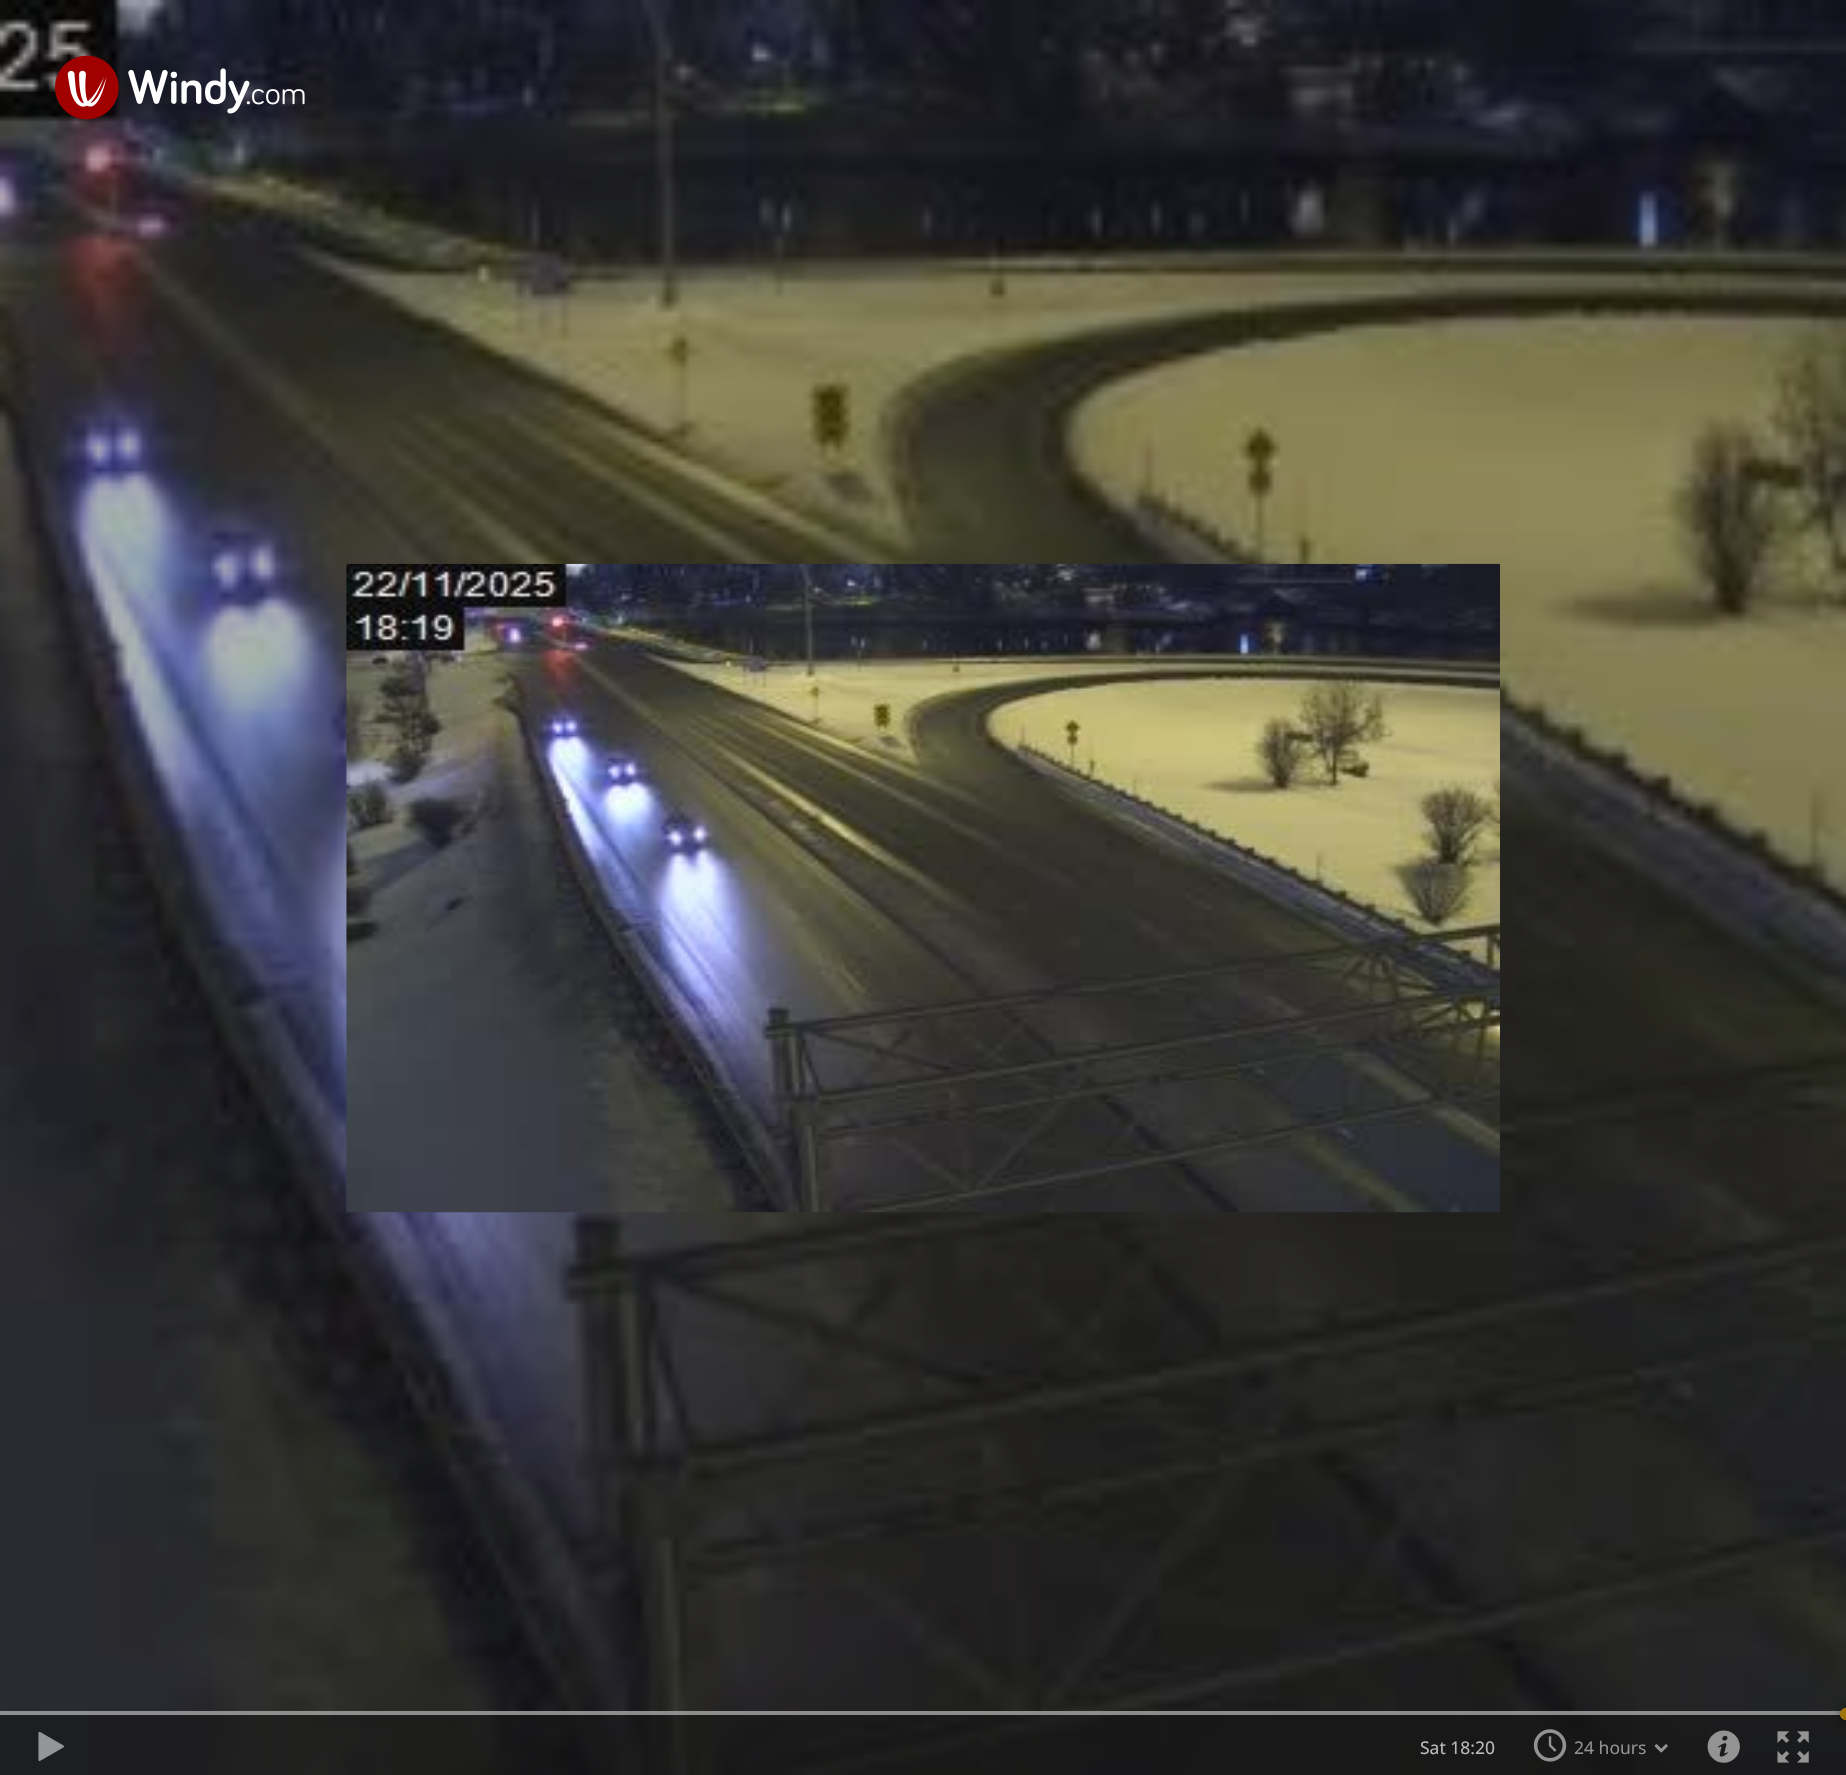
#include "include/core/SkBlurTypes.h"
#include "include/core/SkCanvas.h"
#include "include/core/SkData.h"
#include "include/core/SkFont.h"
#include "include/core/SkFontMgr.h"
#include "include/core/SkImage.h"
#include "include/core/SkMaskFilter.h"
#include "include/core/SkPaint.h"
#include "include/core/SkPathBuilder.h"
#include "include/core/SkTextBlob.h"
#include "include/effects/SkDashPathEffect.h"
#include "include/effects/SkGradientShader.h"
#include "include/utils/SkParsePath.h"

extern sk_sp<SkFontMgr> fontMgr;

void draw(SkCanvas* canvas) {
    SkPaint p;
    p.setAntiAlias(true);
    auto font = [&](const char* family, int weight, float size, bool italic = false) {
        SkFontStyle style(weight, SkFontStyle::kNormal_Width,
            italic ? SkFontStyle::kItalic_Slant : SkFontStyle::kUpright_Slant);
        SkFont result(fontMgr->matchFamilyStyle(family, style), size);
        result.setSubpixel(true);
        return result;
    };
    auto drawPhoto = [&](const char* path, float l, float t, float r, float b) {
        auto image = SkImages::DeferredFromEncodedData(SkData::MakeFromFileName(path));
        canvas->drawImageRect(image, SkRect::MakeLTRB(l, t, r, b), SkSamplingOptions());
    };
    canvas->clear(0xFFFFFFFF);
    drawPhoto("media/1.png", 0, 0, 1846, 1775);
    drawPhoto("media/2.png", 55, 55, 305, 120);
    drawPhoto("media/3.png", 346, 563, 1500, 1213);
    p.setColor(0x8F141414);
    canvas->drawRect(SkRect::MakeLTRB(0, 1711, 1846, 1775), p);
    p.setColor(0x96DCDCDC);
    canvas->drawRect(SkRect::MakeLTRB(0, 1711, 1846, 1715), p);
    p.setColor(0xB3000000);
    p.setMaskFilter(SkMaskFilter::MakeBlur(kNormal_SkBlurStyle, 5.5f));
    canvas->drawRoundRect(SkRect::MakeLTRB(1841, 1709, 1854, 1721), 6, 6, p);
    p.setMaskFilter(nullptr);
    p.setColor(0xFF9F730B);
    canvas->drawPath(SkPathBuilder().moveTo(1846, 1708).lineTo(1846, 1720).cubicTo(1842.5f, 1720, 1840, 1717.5f, 1840, 1714).cubicTo(1840, 1710.5f, 1842.5f, 1708, 1846, 1708).close().detach(), p);
    drawPhoto("media/4.png", 38, 1731, 64, 1762);
    auto font1 = font("Noto Sans", 400, 17.5f);
    p.setColor(0xFFBBBBBB);
    canvas->drawString("Sat 18:20", 1420, 1754, font1, p);
    drawPhoto("media/5.png", 1533, 1729, 1567, 1762);
    p.setColor(0xFF919191);
    canvas->drawString("24 hours", 1574, 1754, font1, p);
    drawPhoto("media/6.png", 1654, 1744, 1668, 1753);
    drawPhoto("media/7.png", 1707, 1730, 1740, 1763);
    drawPhoto("media/8.png", 1777, 1731, 1809, 1763);
}
